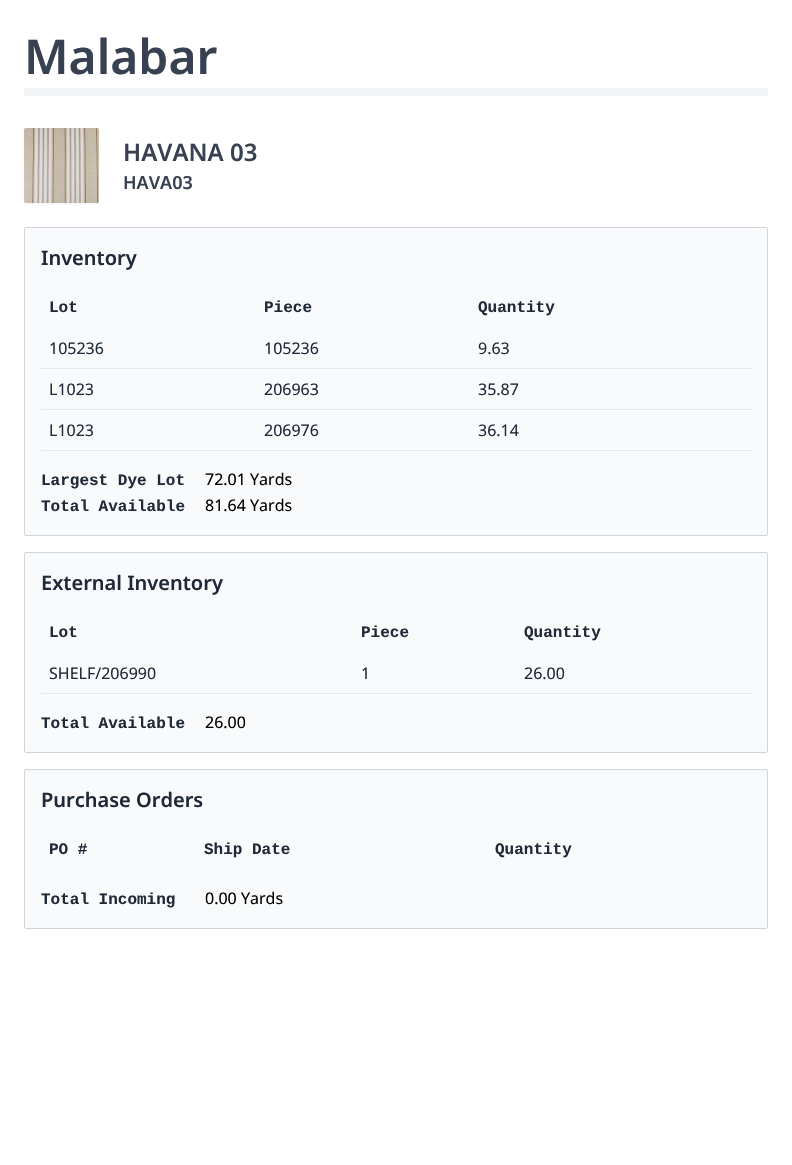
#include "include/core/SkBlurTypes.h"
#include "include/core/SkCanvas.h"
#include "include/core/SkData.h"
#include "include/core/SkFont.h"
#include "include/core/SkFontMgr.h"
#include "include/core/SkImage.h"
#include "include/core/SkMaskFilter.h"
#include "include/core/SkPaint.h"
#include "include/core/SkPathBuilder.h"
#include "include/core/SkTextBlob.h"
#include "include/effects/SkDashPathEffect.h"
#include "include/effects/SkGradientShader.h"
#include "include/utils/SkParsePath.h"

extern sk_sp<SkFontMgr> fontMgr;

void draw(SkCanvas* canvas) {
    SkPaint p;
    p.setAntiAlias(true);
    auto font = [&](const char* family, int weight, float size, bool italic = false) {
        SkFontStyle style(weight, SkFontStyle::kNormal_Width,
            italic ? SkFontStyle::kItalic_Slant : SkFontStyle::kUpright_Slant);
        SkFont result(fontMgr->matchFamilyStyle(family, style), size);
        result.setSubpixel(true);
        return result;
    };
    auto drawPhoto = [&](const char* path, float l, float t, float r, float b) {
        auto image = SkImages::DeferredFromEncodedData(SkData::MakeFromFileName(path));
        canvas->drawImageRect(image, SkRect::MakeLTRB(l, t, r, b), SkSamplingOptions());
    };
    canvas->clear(0xFFFFFFFF);
    p.setColor(0xFFF3F4F6);
    canvas->drawRect(SkRect::MakeLTRB(24, 88, 768, 96), p);
    auto font1 = font("Noto Sans", 600, 48);
    p.setColor(0xFF374151);
    canvas->drawString("Malabar", 24, 74, font1, p);
    p.setColor(0x0D000000);
    p.setMaskFilter(SkMaskFilter::MakeBlur(kNormal_SkBlurStyle, 1));
    canvas->drawRoundRect(SkRect::MakeLTRB(24, 129, 99, 204), 2, 2, p);
    p.setMaskFilter(nullptr);
    drawPhoto("media/1.png", 24, 128, 99, 203);
    auto font2 = font("Noto Sans", 600, 24);
    p.setColor(0xFF374151);
    canvas->drawString("HAVANA 03", 123, 161, font2, p);
    auto font3 = font("Noto Sans", 600, 18);
    canvas->drawString("HAVA03", 123, 189, font3, p);
    p.setColor(0xFFF9FAFB);
    canvas->drawRoundRect(SkRect::MakeLTRB(24.5f, 227.5f, 767.5f, 535.5f), 1.5f, 1.5f, p);
    p.setStyle(SkPaint::kStroke_Style);
    p.setStrokeWidth(1);
    p.setColor(0xFFD1D5DB);
    canvas->drawRoundRect(SkRect::MakeLTRB(24.5f, 227.5f, 767.5f, 535.5f), 1.5f, 1.5f, p);
    auto font4 = font("Noto Sans", 600, 20);
    p.setStyle(SkPaint::kFill_Style);
    p.setColor(0xFF1F2937);
    canvas->drawString("Inventory", 41, 265, font4, p);
    auto font5 = font("Liberation Mono", 700, 16);
    {
        const struct { const char* s; float x, y; } items[] = {
            {"Lot", 49, 312},
            {"Piece", 264, 312},
            {"Quantity", 478, 312},
        };
        for (auto [s, x, y] : items) {
            canvas->drawString(s, x, y, font5, p);
        }
    }
    auto font6 = font("Noto Sans", 400, 16);
    canvas->drawString("105236", 49, 354, font6, p);
    canvas->drawString("105236", 264, 354, font6, p);
    p.setColor(0xFFE5E7EB);
    canvas->drawRect(SkRect::MakeLTRB(41, 368, 752, 369), p);
    p.setColor(0xFF1F2937);
    {
        const struct { const char* s; float x, y; } items[] = {
            {"9.63", 478, 354},
            {"L1023", 49, 395},
            {"206963", 264, 395},
        };
        for (auto [s, x, y] : items) {
            canvas->drawString(s, x, y, font6, p);
        }
    }
    p.setColor(0xFFE5E7EB);
    canvas->drawRect(SkRect::MakeLTRB(41, 409, 752, 410), p);
    p.setColor(0xFF1F2937);
    {
        const struct { const char* s; float x, y; } items[] = {
            {"35.87", 478, 395},
            {"L1023", 49, 436},
            {"206976", 264, 436},
        };
        for (auto [s, x, y] : items) {
            canvas->drawString(s, x, y, font6, p);
        }
    }
    p.setColor(0xFFE5E7EB);
    canvas->drawRect(SkRect::MakeLTRB(41, 450, 752, 451), p);
    p.setColor(0xFF1F2937);
    canvas->drawString("36.14", 478, 436, font6, p);
    canvas->drawString("Largest Dye Lot", 41, 485, font5, p);
    p.setColor(0xFF000000);
    canvas->drawString("72.01 Yards", 205, 485, font6, p);
    p.setColor(0xFF1F2937);
    canvas->drawString("Total Available", 41, 511, font5, p);
    p.setColor(0xFF000000);
    canvas->drawString("81.64 Yards", 205, 511, font6, p);
    p.setColor(0xFFF9FAFB);
    canvas->drawRoundRect(SkRect::MakeLTRB(24.5f, 552.5f, 767.5f, 752.5f), 1.5f, 1.5f, p);
    p.setStyle(SkPaint::kStroke_Style);
    p.setColor(0xFFD1D5DB);
    canvas->drawRoundRect(SkRect::MakeLTRB(24.5f, 552.5f, 767.5f, 752.5f), 1.5f, 1.5f, p);
    p.setStyle(SkPaint::kFill_Style);
    p.setColor(0xFF1F2937);
    canvas->drawString("External Inventory", 41, 590, font4, p);
    {
        const struct { const char* s; float x, y; } items[] = {
            {"Lot", 49, 637},
            {"Piece", 361, 637},
            {"Quantity", 524, 637},
        };
        for (auto [s, x, y] : items) {
            canvas->drawString(s, x, y, font5, p);
        }
    }
    canvas->drawString("SHELF/206990", 49, 679, font6, p);
    canvas->drawString("1", 361, 679, font6, p);
    p.setColor(0xFFE5E7EB);
    canvas->drawRect(SkRect::MakeLTRB(41, 693, 752, 694), p);
    p.setColor(0xFF1F2937);
    canvas->drawString("26.00", 524, 679, font6, p);
    canvas->drawString("Total Available", 41, 728, font5, p);
    p.setColor(0xFF000000);
    canvas->drawString("26.00", 205, 728, font6, p);
    p.setColor(0xFFF9FAFB);
    canvas->drawRoundRect(SkRect::MakeLTRB(24.5f, 769.5f, 767.5f, 928.5f), 1.5f, 1.5f, p);
    p.setStyle(SkPaint::kStroke_Style);
    p.setColor(0xFFD1D5DB);
    canvas->drawRoundRect(SkRect::MakeLTRB(24.5f, 769.5f, 767.5f, 928.5f), 1.5f, 1.5f, p);
    p.setStyle(SkPaint::kFill_Style);
    p.setColor(0xFF1F2937);
    canvas->drawString("Purchase Orders", 41, 807, font4, p);
    {
        const struct { const char* s; float x, y; } items[] = {
            {"PO #", 49, 854},
            {"Ship Date", 204, 854},
            {"Quantity", 495, 854},
            {"Total Incoming", 41, 904},
        };
        for (auto [s, x, y] : items) {
            canvas->drawString(s, x, y, font5, p);
        }
    }
    p.setColor(0xFF000000);
    canvas->drawString("0.00 Yards", 205, 904, font6, p);
}
